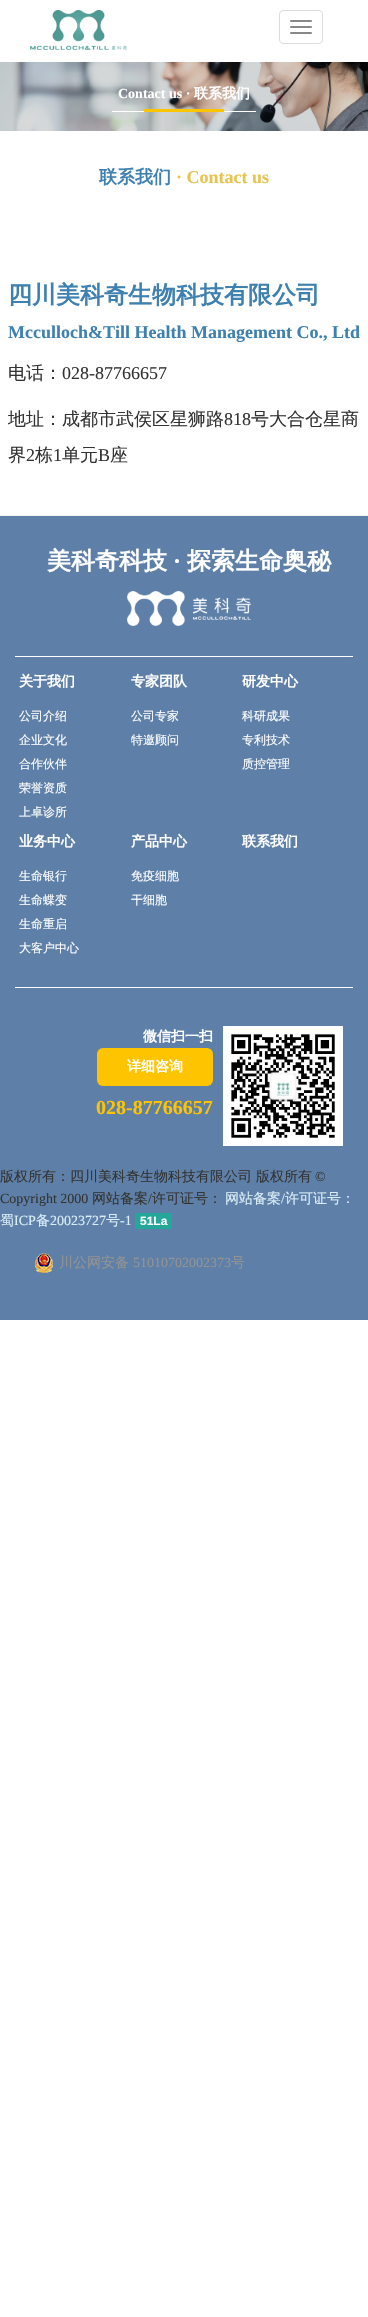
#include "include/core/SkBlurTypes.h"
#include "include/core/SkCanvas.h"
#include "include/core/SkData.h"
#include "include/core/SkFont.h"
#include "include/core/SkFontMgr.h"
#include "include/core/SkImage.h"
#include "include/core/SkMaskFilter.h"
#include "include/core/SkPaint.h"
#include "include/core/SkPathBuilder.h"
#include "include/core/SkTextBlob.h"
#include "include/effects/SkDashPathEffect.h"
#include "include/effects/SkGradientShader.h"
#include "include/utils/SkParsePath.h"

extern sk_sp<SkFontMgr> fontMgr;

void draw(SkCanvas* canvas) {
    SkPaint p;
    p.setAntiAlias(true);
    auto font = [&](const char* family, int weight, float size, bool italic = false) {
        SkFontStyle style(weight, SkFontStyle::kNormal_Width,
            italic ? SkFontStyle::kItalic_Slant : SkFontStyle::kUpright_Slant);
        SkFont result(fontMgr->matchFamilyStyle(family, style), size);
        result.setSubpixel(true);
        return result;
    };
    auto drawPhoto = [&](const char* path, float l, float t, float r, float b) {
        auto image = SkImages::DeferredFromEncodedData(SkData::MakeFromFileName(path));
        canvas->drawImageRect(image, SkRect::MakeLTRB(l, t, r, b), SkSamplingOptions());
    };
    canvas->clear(0xFFFFFFFF);
    drawPhoto("media/1.png", 30, 10, 127, 50);
    p.setStyle(SkPaint::kStroke_Style);
    p.setStrokeWidth(1);
    p.setColor(0xFFDDDDDD);
    canvas->drawRoundRect(SkRect::MakeLTRB(279.5f, 10.5f, 322.5f, 43.5f), 3.5f, 3.5f, p);
    p.setStyle(SkPaint::kFill_Style);
    p.setColor(0xFF888888);
    canvas->drawRoundRect(SkRect::MakeLTRB(290, 20, 312, 22), 1, 1, p);
    canvas->drawRoundRect(SkRect::MakeLTRB(290, 26, 312, 28), 1, 1, p);
    canvas->drawRoundRect(SkRect::MakeLTRB(290, 32, 312, 34), 1, 1, p);
    drawPhoto("media/2.png", 0, 62, 368, 131);
    p.setColor(0xFFFFFFFF);
    canvas->drawRect(SkRect::MakeLTRB(112, 111, 256, 112), p);
    auto font1 = font("Liberation Serif", 700, 14);
    canvas->drawString("Contact us ·", 118, 98, font1, p);
    auto font2 = font("WenQuanYi Zen Hei", 700, 14);
    canvas->drawString("联系我们", 194, 98, font2, p);
    p.setColor(0xFFFFC400);
    canvas->drawRect(SkRect::MakeLTRB(144, 109, 224, 112), p);
    p.setColor(0xFFF5F5F5);
    canvas->drawRect(SkRect::MakeLTRB(0, 515, 368, 516), p);
    auto font3 = font("WenQuanYi Zen Hei", 700, 18);
    p.setColor(0xFF3E80AF);
    canvas->drawString("联系我们", 99, 183, font3, p);
    auto font4 = font("Liberation Serif", 700, 18);
    p.setColor(0xFFE7C450);
    canvas->drawString("· Contact us", 176, 183, font4, p);
    auto font5 = font("WenQuanYi Zen Hei", 700, 24);
    p.setColor(0xFF3E80AF);
    canvas->drawString("四川美科奇生物科技有限公司", 8, 303, font5, p);
    canvas->drawString("Mcculloch&Till Health Management Co., Ltd", 8, 338, font4, p);
    auto font6 = font("WenQuanYi Zen Hei", 500, 18);
    p.setColor(0xFF333333);
    canvas->drawString("电话：", 8, 379, font6, p);
    auto font7 = font("Liberation Serif", 400, 18);
    canvas->drawString("028-87766657", 62, 379, font7, p);
    canvas->drawString("地址：成都市武侯区星狮路", 8, 425, font6, p);
    canvas->drawString("818", 224, 425, font7, p);
    canvas->drawString("号大合仓星商", 251, 425, font6, p);
    canvas->drawString("界", 8, 461, font6, p);
    canvas->drawString("2", 26, 461, font7, p);
    canvas->drawString("栋", 35, 461, font6, p);
    canvas->drawString("1", 53, 461, font7, p);
    canvas->drawString("单元", 62, 461, font6, p);
    canvas->drawString("B", 98, 461, font7, p);
    canvas->drawString("座", 110, 461, font6, p);
    p.setColor(0xFF5E80A8);
    canvas->drawRect(SkRect::MakeLTRB(0, 516, 368, 1320), p);
    p.setColor(0xFFFFFFFF);
    canvas->drawString("美科奇科技", 47, 569, font5, p);
    auto font8 = font("Liberation Serif", 700, 24);
    canvas->drawString("·", 173, 569, font8, p);
    canvas->drawString("探索生命奥秘", 187, 569, font5, p);
    drawPhoto("media/3.png", 127, 591, 251, 626);
    canvas->drawRect(SkRect::MakeLTRB(15, 656, 353, 657), p);
    canvas->drawRect(SkRect::MakeLTRB(15, 987, 353, 988), p);
    canvas->drawString("关于我们", 19, 686, font2, p);
    auto font9 = font("WenQuanYi Zen Hei", 500, 12);
    {
        const struct { const char* s; float x, y; } items[] = {
            {"公司介绍", 19, 720},
            {"企业文化", 19, 744},
            {"合作伙伴", 19, 768},
            {"荣誉资质", 19, 792},
            {"上卓诊所", 19, 816},
        };
        for (auto [s, x, y] : items) {
            canvas->drawString(s, x, y, font9, p);
        }
    }
    canvas->drawString("专家团队", 131, 686, font2, p);
    canvas->drawString("公司专家", 131, 720, font9, p);
    canvas->drawString("特邀顾问", 131, 744, font9, p);
    canvas->drawString("研发中心", 242, 686, font2, p);
    {
        const struct { const char* s; float x, y; } items[] = {
            {"科研成果", 242, 720},
            {"专利技术", 242, 744},
            {"质控管理", 242, 768},
        };
        for (auto [s, x, y] : items) {
            canvas->drawString(s, x, y, font9, p);
        }
    }
    canvas->drawString("业务中心", 19, 846, font2, p);
    {
        const struct { const char* s; float x, y; } items[] = {
            {"生命银行", 19, 880},
            {"生命蝶变", 19, 904},
            {"生命重启", 19, 928},
            {"大客户中心", 19, 952},
        };
        for (auto [s, x, y] : items) {
            canvas->drawString(s, x, y, font9, p);
        }
    }
    canvas->drawString("产品中心", 131, 846, font2, p);
    canvas->drawString("免疫细胞", 131, 880, font9, p);
    canvas->drawString("干细胞", 131, 904, font9, p);
    canvas->drawString("联系我们", 242, 846, font2, p);
    canvas->drawString("微信扫一扫", 143, 1041, font2, p);
    p.setColor(0xFFFFC400);
    canvas->drawRoundRect(SkRect::MakeLTRB(97, 1048, 213, 1086), 6, 6, p);
    p.setColor(0xFFFFFFFF);
    canvas->drawString("详细咨询", 127, 1071, font2, p);
    auto font10 = font("Liberation Serif", 700, 20);
    p.setColor(0xFFFFC400);
    canvas->drawString("028-87766657", 96, 1114, font10, p);
    drawPhoto("media/4.png", 223, 1026, 343, 1146);
    auto font11 = font("WenQuanYi Zen Hei", 500, 14);
    p.setColor(0xFF333333);
    canvas->drawString("版权所有：四川美科奇生物科技有限公司", 0, 1181, font11, p);
    canvas->drawString("版权所有", 256, 1181, font11, p);
    auto font12 = font("Liberation Serif", 400, 14);
    canvas->drawString("©", 315, 1181, font12, p);
    canvas->drawString("Copyright 2000", 0, 1203, font12, p);
    canvas->drawString("网站备案", 92, 1203, font11, p);
    canvas->drawString("/", 148, 1203, font12, p);
    canvas->drawString("许可证号：", 152, 1203, font11, p);
    p.setColor(0xFFD9EDF7);
    canvas->drawString("网站备案", 225, 1203, font11, p);
    canvas->drawString("/", 281, 1203, font12, p);
    canvas->drawString("许可证号：", 285, 1203, font11, p);
    canvas->drawString("蜀", 0, 1225, font11, p);
    canvas->drawString("ICP", 14, 1225, font12, p);
    canvas->drawString("备", 36, 1225, font11, p);
    canvas->drawString("20023727", 50, 1225, font12, p);
    canvas->drawString("号", 106, 1225, font11, p);
    canvas->drawString("-1", 120, 1225, font12, p);
    p.setColor(0xFF25A69A);
    canvas->drawRect(SkRect::MakeLTRB(135, 1213, 172, 1229), p);
    auto font13 = font("Liberation Sans", 700, 12);
    p.setColor(0xFFFFFFFF);
    canvas->drawString("51La", 140, 1225, font13, p);
    drawPhoto("media/5.png", 35, 1253, 53, 1273);
    p.setColor(0xFF939393);
    canvas->drawString("川公网安备", 59, 1267, font11, p);
    canvas->drawString("51010702002373", 133, 1267, font12, p);
    canvas->drawString("号", 231, 1267, font11, p);
}
